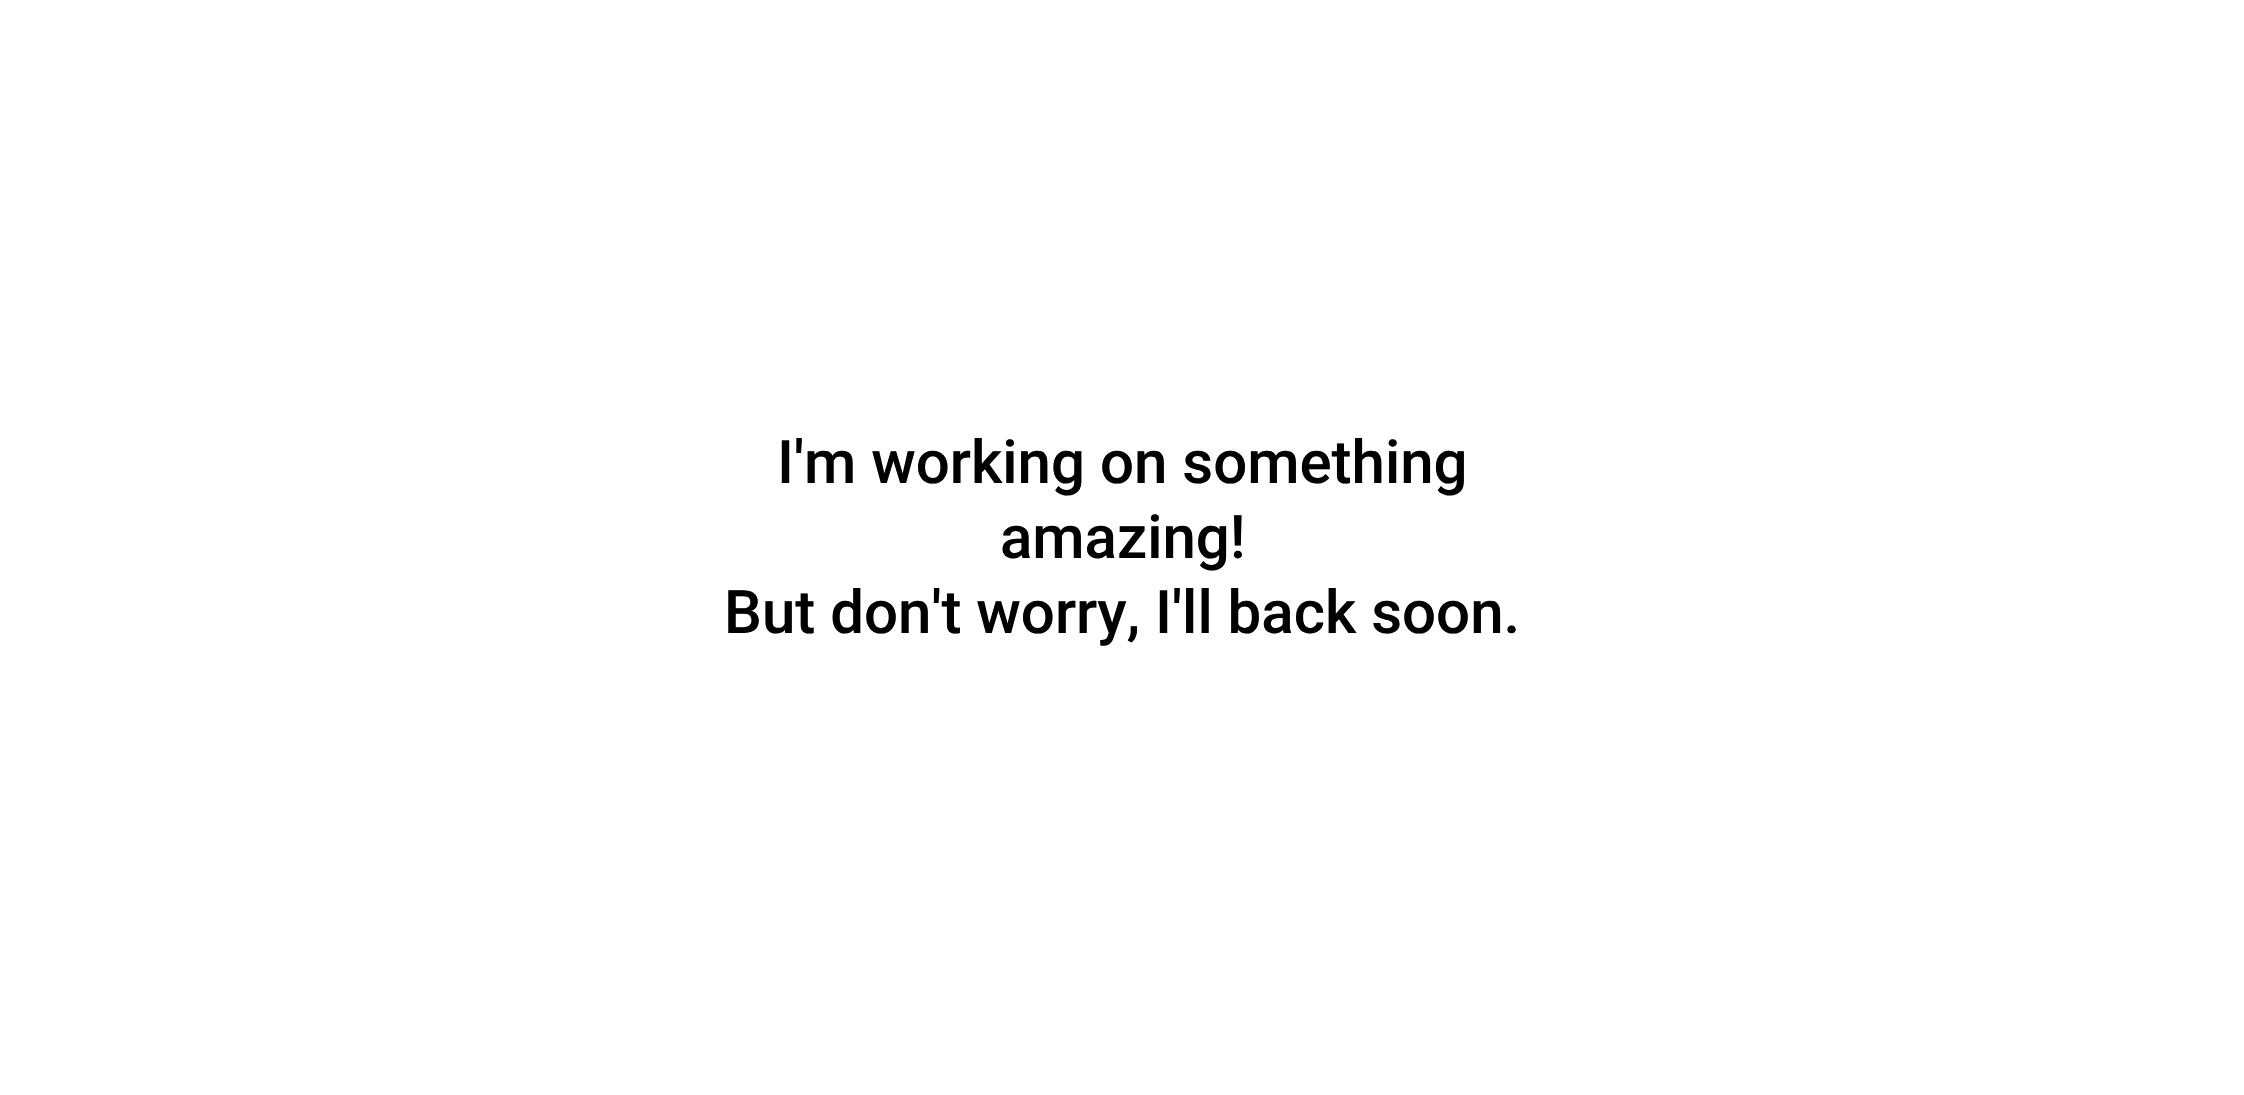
#include "include/core/SkBlurTypes.h"
#include "include/core/SkCanvas.h"
#include "include/core/SkData.h"
#include "include/core/SkFont.h"
#include "include/core/SkFontMgr.h"
#include "include/core/SkImage.h"
#include "include/core/SkMaskFilter.h"
#include "include/core/SkPaint.h"
#include "include/core/SkPathBuilder.h"
#include "include/core/SkTextBlob.h"
#include "include/effects/SkDashPathEffect.h"
#include "include/effects/SkGradientShader.h"
#include "include/utils/SkParsePath.h"

extern sk_sp<SkFontMgr> fontMgr;

void draw(SkCanvas* canvas) {
    SkPaint p;
    p.setAntiAlias(true);
    auto font = [&](const char* family, int weight, float size, bool italic = false) {
        SkFontStyle style(weight, SkFontStyle::kNormal_Width,
            italic ? SkFontStyle::kItalic_Slant : SkFontStyle::kUpright_Slant);
        SkFont result(fontMgr->matchFamilyStyle(family, style), size);
        result.setSubpixel(true);
        return result;
    };
    canvas->clear(0xFFFFFFFF);
    auto font1 = font("Roboto", 500, 60);
    p.setColor(0xFF000000);
    {
        const struct { const char* s; float x, y; } items[] = {
            {"I'm working on something", 777, 483},
            {"amazing!", 1000, 558},
            {"But don't worry, I'll back soon.", 724, 633},
        };
        for (auto [s, x, y] : items) {
            canvas->drawString(s, x, y, font1, p);
        }
    }
}
